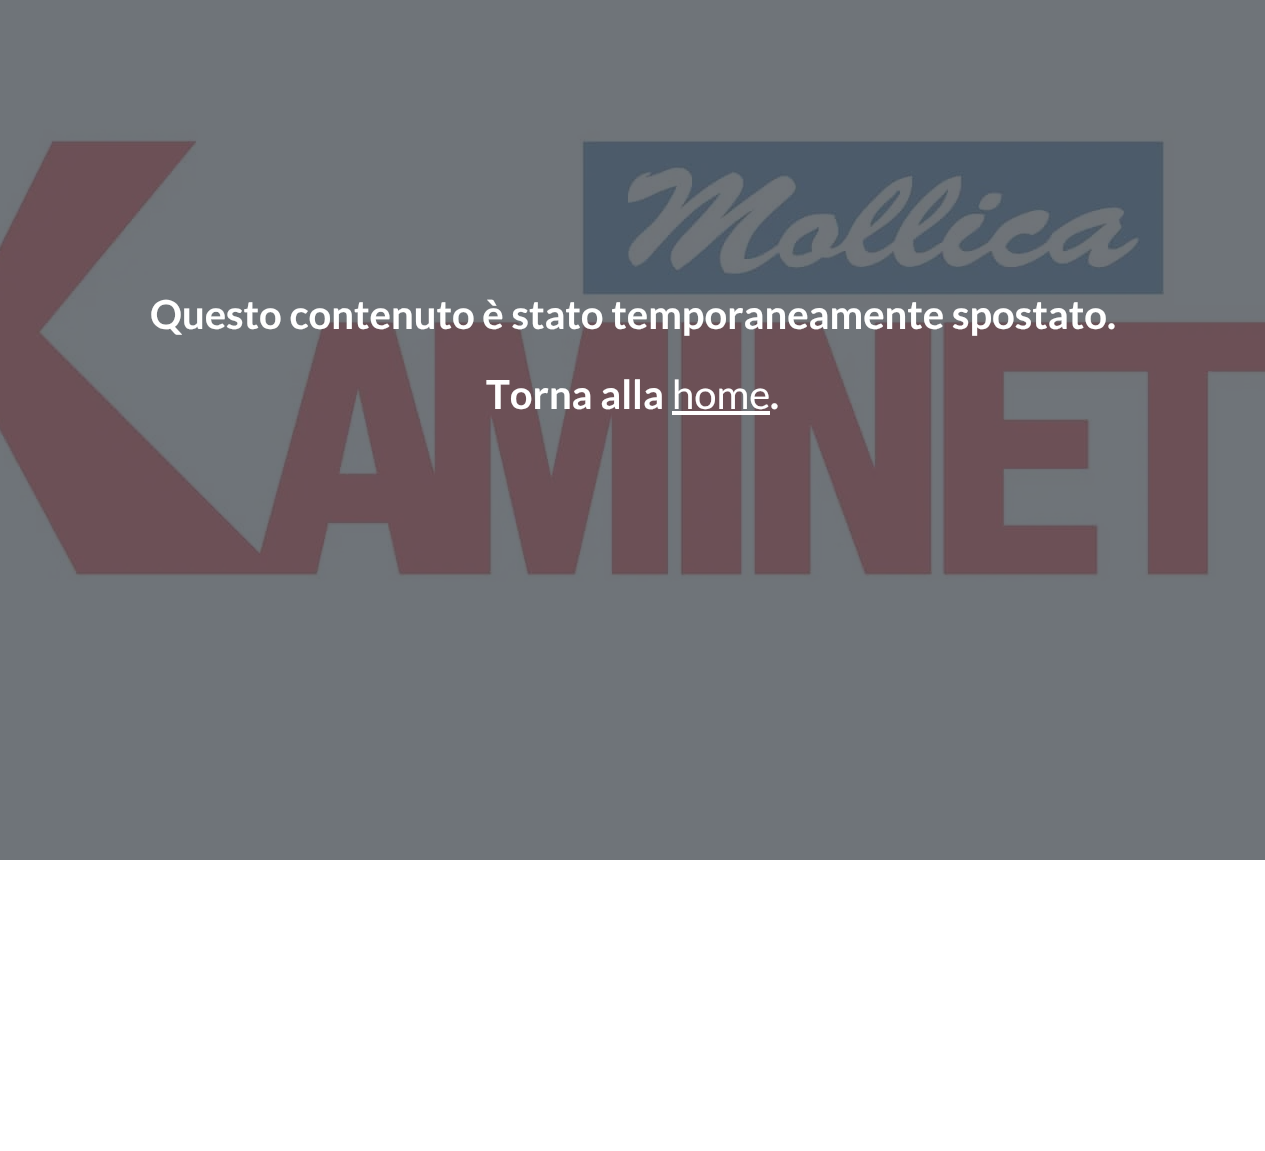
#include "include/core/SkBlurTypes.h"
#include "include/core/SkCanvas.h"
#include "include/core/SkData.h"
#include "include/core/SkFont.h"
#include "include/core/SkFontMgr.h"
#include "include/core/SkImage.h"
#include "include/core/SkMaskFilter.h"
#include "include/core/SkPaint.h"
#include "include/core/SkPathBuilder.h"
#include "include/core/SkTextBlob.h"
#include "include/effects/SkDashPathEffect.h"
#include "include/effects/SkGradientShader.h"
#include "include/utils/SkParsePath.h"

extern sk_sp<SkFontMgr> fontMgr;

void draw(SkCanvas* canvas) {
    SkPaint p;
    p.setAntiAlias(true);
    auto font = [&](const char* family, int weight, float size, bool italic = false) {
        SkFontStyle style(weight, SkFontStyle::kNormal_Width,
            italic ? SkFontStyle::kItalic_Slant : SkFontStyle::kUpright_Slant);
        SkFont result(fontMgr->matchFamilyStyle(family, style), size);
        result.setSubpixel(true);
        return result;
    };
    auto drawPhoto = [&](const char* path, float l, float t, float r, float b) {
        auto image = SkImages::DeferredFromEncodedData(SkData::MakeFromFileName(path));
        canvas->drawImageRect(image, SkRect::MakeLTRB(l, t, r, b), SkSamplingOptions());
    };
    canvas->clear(0xFFFFFFFF);
    p.setColor(0xFF6F7479);
    canvas->drawRect(SkRect::MakeLTRB(0, 0, 1265, 860), p);
    drawPhoto("media/1.png", 0, 129, 1265, 582);
    auto font1 = font("Lato", 700, 40);
    p.setColor(0xFFFFFFFF);
    canvas->drawString("Questo contenuto è stato temporaneamente spostato.", 150, 329, font1, p);
    canvas->drawString("Torna alla", 486, 409, font1, p);
    auto font2 = font("Lato", 400, 40);
    canvas->drawString("home", 672, 409, font2, p);
    canvas->drawRect(SkRect::MakeLTRB(672, 411, 770, 415), p);
    canvas->drawString(".", 770, 409, font1, p);
}
